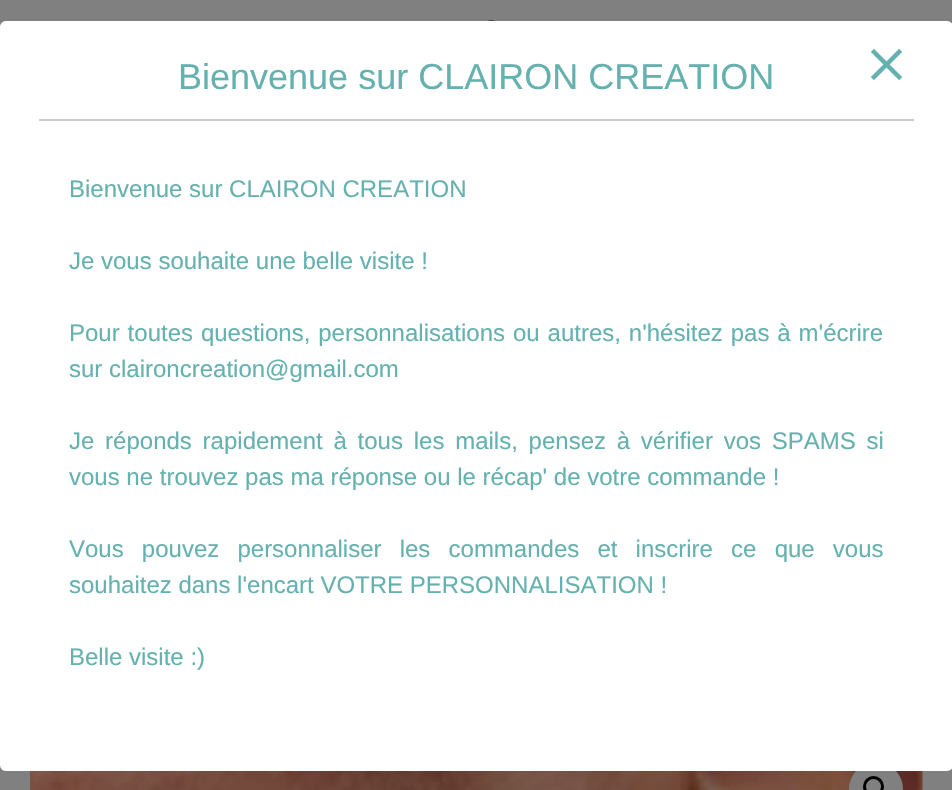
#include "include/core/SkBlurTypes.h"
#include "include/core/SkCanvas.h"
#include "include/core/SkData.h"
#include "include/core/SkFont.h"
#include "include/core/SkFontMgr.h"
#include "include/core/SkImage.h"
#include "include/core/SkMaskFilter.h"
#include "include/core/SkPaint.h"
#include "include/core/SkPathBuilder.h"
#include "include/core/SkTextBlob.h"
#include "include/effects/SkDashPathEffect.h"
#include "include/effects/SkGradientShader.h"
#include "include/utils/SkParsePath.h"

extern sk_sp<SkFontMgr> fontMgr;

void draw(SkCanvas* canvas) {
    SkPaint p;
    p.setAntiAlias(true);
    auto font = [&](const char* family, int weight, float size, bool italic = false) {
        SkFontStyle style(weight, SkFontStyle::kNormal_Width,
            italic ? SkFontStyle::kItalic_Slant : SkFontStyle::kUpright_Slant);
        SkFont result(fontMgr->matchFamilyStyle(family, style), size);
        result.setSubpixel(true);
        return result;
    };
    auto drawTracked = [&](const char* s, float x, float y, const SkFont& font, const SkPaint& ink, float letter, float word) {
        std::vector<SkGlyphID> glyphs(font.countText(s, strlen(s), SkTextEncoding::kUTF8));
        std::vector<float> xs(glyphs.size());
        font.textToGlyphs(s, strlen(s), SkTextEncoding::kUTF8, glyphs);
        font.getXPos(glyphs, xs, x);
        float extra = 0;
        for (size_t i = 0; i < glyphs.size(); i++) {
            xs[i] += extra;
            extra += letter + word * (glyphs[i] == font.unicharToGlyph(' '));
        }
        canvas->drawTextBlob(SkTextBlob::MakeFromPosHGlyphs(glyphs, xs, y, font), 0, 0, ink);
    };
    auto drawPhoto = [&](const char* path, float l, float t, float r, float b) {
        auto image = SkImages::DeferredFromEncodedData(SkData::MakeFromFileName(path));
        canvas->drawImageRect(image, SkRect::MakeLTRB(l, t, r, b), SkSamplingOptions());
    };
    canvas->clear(0xFF808080);
    drawPhoto("media/1.png", 488, 19, 495, 21);
    drawPhoto("media/2.png", 30, 771, 923, 790);
    p.setColor(0xFF808080);
    canvas->drawCircle(876, 789, 27, p);
    p.setStyle(SkPaint::kStroke_Style);
    p.setStrokeWidth(3);
    p.setColor(0xFF000000);
    canvas->drawCircle(873.5f, 786.5f, 9, p);
    p.setStyle(SkPaint::kFill_Style);
    p.setColor(0xFFFFFFFF);
    canvas->drawRoundRect(SkRect::MakeLTRB(0, 21, 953, 771), 6, 6, p);
    p.setStyle(SkPaint::kStroke_Style);
    p.setStrokeWidth(1.5f);
    p.setPathEffect(SkDashPathEffect::Make({{1.5f, 1.5f}}, 0));
    canvas->drawPath(SkPathBuilder().moveTo(6, 22).lineTo(946.5f, 22).cubicTo(949.5f, 22, 952, 24, 952, 27).lineTo(952, 765).cubicTo(952, 768, 949.5f, 770, 946.5f, 770).lineTo(6, 770).cubicTo(3, 770, 1, 768, 1, 765).lineTo(1, 27).cubicTo(1, 24, 3, 22, 6, 22).close().detach(), p);
    p.setPathEffect(nullptr);
    auto font1 = font("Liberation Sans", 400, 36);
    p.setStyle(SkPaint::kFill_Style);
    p.setColor(0xFF65B1AF);
    canvas->drawString("Bienvenue sur CLAIRON CREATION", 178, 89, font1, p);
    drawPhoto("media/3.png", 870, 48, 903, 81);
    p.setColor(0xFFCCCCCC);
    canvas->drawRect(SkRect::MakeLTRB(39, 119, 914, 121), p);
    auto font2 = font("Liberation Sans", 400, 24);
    p.setColor(0xFF65B1AF);
    canvas->drawString("Bienvenue sur CLAIRON CREATION", 69, 197, font2, p);
    canvas->drawString("Je vous souhaite une belle visite !", 69, 269, font2, p);
    drawTracked("Pour toutes questions, personnalisations ou autres, n'hésitez pas à m'écrire", 69, 341, font2, p, 0, 1.25f);
    canvas->drawString("sur claironcreation@gmail.com", 69, 377, font2, p);
    drawTracked("Je réponds rapidement à tous les mails, pensez à vérifier vos SPAMS si", 69, 449, font2, p, 0, 4.1f);
    canvas->drawString("vous ne trouvez pas ma réponse ou le récap' de votre commande !", 69, 485, font2, p);
    drawTracked("Vous pouvez personnaliser les commandes et inscrire ce que vous", 69, 557, font2, p, 0, 11.5f);
    canvas->drawString("souhaitez dans l'encart VOTRE PERSONNALISATION !", 69, 593, font2, p);
    canvas->drawString("Belle visite :)", 69, 665, font2, p);
}
